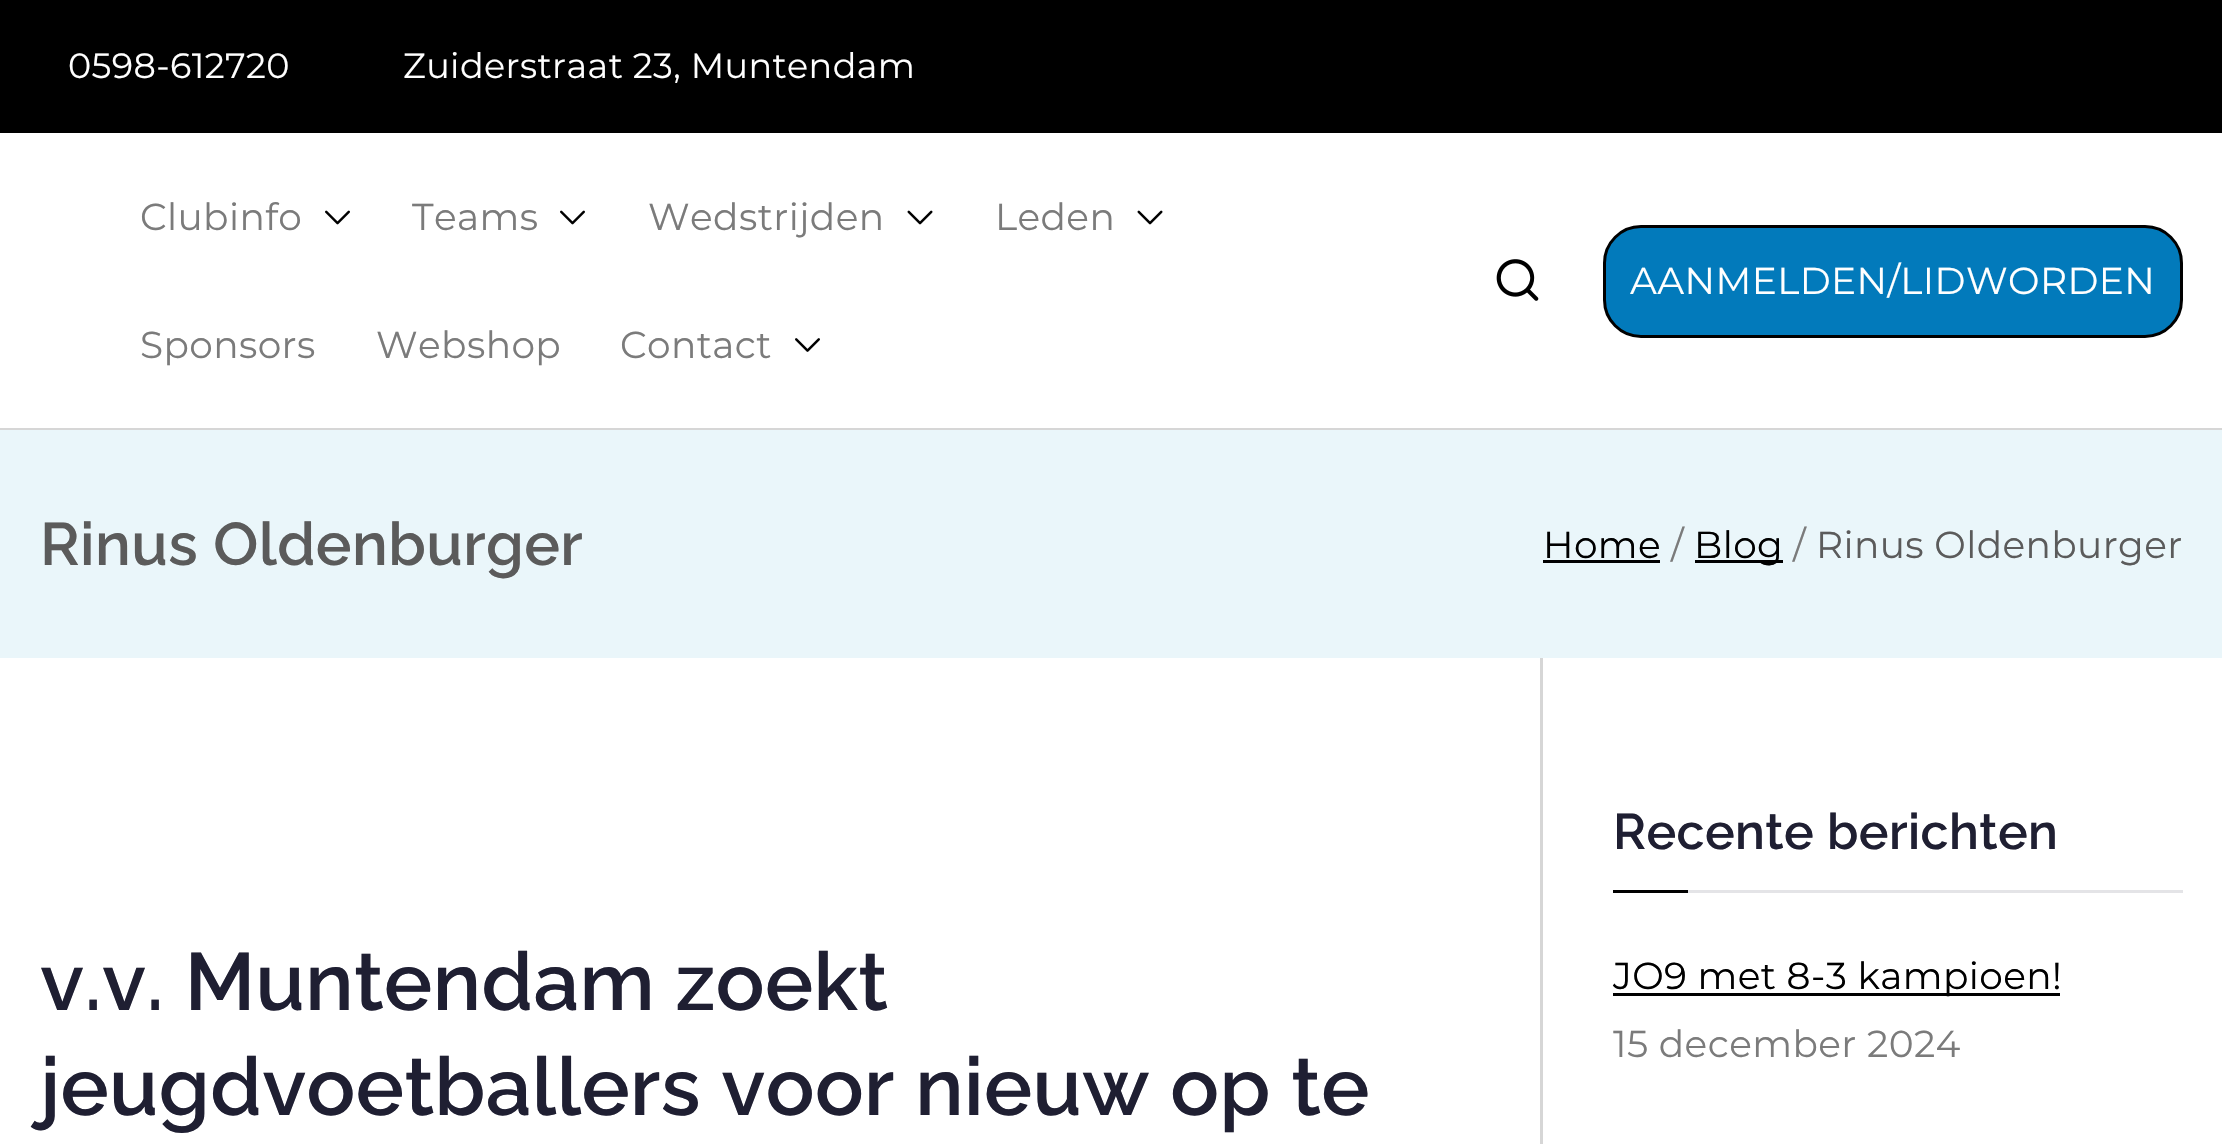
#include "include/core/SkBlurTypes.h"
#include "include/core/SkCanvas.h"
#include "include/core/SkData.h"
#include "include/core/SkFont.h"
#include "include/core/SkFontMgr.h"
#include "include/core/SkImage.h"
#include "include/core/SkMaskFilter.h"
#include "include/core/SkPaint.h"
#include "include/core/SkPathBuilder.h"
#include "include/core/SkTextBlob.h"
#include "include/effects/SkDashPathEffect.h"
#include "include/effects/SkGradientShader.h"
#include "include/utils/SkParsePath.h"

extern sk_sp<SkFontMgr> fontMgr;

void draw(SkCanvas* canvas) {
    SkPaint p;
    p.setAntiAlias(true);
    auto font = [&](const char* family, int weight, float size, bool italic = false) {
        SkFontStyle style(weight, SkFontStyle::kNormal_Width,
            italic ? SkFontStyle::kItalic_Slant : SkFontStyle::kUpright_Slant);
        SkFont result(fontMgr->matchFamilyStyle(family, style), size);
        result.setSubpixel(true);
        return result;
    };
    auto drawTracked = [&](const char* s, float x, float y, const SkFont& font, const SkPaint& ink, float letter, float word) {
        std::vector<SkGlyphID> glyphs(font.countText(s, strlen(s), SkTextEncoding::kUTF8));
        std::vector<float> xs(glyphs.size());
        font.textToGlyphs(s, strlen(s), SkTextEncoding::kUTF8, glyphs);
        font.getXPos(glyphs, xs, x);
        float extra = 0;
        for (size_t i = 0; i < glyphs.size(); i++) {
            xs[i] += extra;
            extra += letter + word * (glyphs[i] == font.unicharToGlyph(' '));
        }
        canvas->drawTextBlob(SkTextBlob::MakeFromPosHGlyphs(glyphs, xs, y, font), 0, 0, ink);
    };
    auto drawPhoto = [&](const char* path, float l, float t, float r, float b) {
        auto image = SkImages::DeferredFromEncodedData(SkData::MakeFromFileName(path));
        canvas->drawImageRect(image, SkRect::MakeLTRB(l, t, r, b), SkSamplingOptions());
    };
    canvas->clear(0xFFD6D6D6);
    p.setColor(0xFF000000);
    canvas->drawRect(SkRect::MakeLTRB(0, 0, 2222, 133), p);
    auto font1 = font("Montserrat", 100, 35);
    p.setColor(0xFFFFFFFF);
    drawTracked("0598-612720", 68, 78, font1, p, 0.4f, 0);
    drawTracked("Zuiderstraat 23, Muntendam", 403, 78, font1, p, 0.4f, 0);
    canvas->drawRect(SkRect::MakeLTRB(0, 133, 2222, 428), p);
    auto font2 = font("Montserrat", 100, 37.5f);
    p.setColor(0xFF7B7B7B);
    drawTracked("Clubinfo", 140, 230, font2, p, 0.4f, 0);
    drawPhoto("media/1.png", 325, 210, 350, 225);
    drawTracked("Teams", 412, 230, font2, p, 0.4f, 0);
    drawPhoto("media/1.png", 560, 210, 585, 225);
    drawTracked("Wedstrijden", 648, 230, font2, p, 0.4f, 0);
    drawPhoto("media/2.png", 907, 210, 933, 225);
    drawTracked("Leden", 995, 230, font2, p, 0.4f, 0);
    drawPhoto("media/2.png", 1137, 210, 1163, 225);
    {
        const struct { const char* s; float x, y; } items[] = {
            {"Sponsors", 140, 358},
            {"Webshop", 376, 358},
            {"Contact", 620, 358},
        };
        for (auto [s, x, y] : items) {
            drawTracked(s, x, y, font2, p, 0.4f, 0);
        }
    }
    drawPhoto("media/3.png", 795, 338, 820, 352);
    drawPhoto("media/4.png", 1496, 259, 1539, 301);
    p.setColor(0xFF027ABB);
    canvas->drawRoundRect(SkRect::MakeLTRB(1604.5f, 226.5f, 2181.5f, 336.5f), 36.5f, 36.5f, p);
    p.setStyle(SkPaint::kStroke_Style);
    p.setStrokeWidth(3);
    p.setColor(0xFF000000);
    canvas->drawRoundRect(SkRect::MakeLTRB(1604.5f, 226.5f, 2181.5f, 336.5f), 36.5f, 36.5f, p);
    p.setStyle(SkPaint::kFill_Style);
    p.setColor(0xFFFFFFFF);
    drawTracked("AANMELDEN/LIDWORDEN", 1630, 294, font2, p, 0.4f, 0);
    p.setColor(0xFFEAF6FA);
    canvas->drawRect(SkRect::MakeLTRB(0, 430, 2222, 658), p);
    auto font3 = font("Raleway", 100, 60);
    p.setColor(0xFF5B5B5B);
    drawTracked("Rinus Oldenburger", 40, 565, font3, p, 0.4f, 0);
    p.setColor(0xFF000000);
    drawTracked("Home", 1543, 558, font2, p, 0.4f, 0);
    canvas->drawRect(SkRect::MakeLTRB(1543, 560, 1660, 563), p);
    p.setColor(0xFF7B7B7B);
    drawTracked("/", 1671, 558, font2, p, 0.4f, 0);
    p.setColor(0xFF000000);
    canvas->drawRect(SkRect::MakeLTRB(1695, 560, 1783, 563), p);
    drawTracked("Blog", 1694, 558, font2, p, 0.4f, 0);
    p.setColor(0xFF7B7B7B);
    drawTracked("/", 1793, 558, font2, p, 0.4f, 0);
    p.setColor(0xFF5B5B5B);
    drawTracked("Rinus Oldenburger", 1816, 558, font2, p, 0.4f, 0);
    p.setColor(0xFFFFFFFF);
    canvas->drawRect(SkRect::MakeLTRB(0, 658, 2222, 1144), p);
    auto font4 = font("Raleway", 100, 81);
    p.setColor(0xFF1F1F32);
    drawTracked("v.v. Muntendam zoekt", 40, 1010, font4, p, 0.4f, 0);
    drawTracked("jeugdvoetballers voor nieuw op te", 40, 1115, font4, p, 0.4f, 0);
    p.setColor(0xFFD6D6D6);
    canvas->drawRect(SkRect::MakeLTRB(1540, 658, 1543, 1144), p);
    p.setColor(0xFFE4E4E7);
    canvas->drawRect(SkRect::MakeLTRB(1688, 890, 2183, 893), p);
    auto font5 = font("Raleway", 100, 50);
    p.setColor(0xFF1F1F32);
    drawTracked("Recente berichten", 1613, 849, font5, p, 0.4f, 0);
    p.setColor(0xFF000000);
    canvas->drawRect(SkRect::MakeLTRB(1613, 890, 1688, 893), p);
    canvas->drawRect(SkRect::MakeLTRB(1613, 993, 2060, 996), p);
    drawTracked("JO9 met 8-3 kampioen!", 1613, 989, font2, p, 0.4f, 0);
    p.setColor(0xFF7B7B7B);
    drawTracked("15 december 2024", 1613, 1057, font2, p, 0.4f, 0);
}
